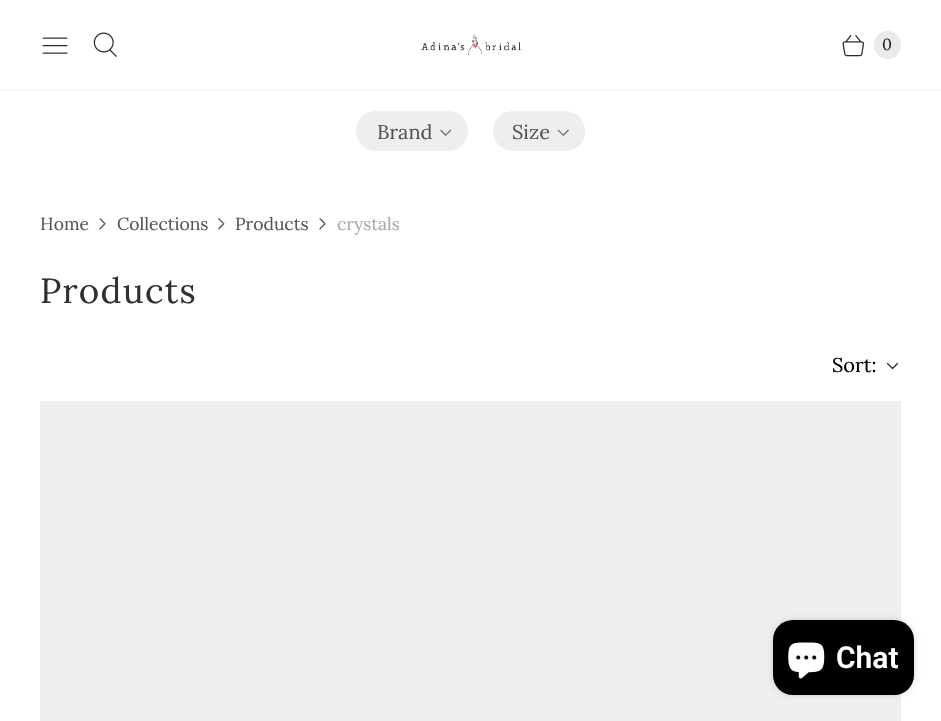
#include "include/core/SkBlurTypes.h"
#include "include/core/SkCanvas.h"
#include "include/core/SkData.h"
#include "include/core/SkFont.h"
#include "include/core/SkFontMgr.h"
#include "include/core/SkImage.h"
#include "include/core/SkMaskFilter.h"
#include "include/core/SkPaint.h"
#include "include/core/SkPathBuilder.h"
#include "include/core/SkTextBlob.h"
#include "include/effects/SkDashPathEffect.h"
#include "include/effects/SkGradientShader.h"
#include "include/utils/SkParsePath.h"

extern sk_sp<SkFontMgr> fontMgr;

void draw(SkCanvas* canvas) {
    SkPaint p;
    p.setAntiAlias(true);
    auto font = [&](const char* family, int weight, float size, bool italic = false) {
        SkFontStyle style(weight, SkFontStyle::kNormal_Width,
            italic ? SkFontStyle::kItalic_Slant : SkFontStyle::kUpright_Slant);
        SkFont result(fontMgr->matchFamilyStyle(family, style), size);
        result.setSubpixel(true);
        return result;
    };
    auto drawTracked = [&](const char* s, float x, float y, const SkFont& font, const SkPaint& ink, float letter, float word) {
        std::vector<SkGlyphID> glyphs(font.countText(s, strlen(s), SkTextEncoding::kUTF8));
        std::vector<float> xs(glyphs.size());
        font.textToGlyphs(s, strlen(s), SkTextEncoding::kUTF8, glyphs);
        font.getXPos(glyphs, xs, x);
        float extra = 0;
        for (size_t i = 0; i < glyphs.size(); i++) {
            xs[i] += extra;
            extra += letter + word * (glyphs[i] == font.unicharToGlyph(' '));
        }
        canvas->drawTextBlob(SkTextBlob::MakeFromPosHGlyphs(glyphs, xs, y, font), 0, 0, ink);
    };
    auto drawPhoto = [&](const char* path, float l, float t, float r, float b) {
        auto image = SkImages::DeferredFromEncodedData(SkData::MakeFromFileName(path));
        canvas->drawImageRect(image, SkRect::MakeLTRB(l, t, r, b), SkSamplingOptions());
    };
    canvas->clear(0xFFFFFFFF);
    p.setColor(0xFFF4F5F5);
    canvas->drawRect(SkRect::MakeLTRB(0, 90, 941, 91), p);
    drawPhoto("media/1.png", 42, 37, 68, 54);
    drawPhoto("media/2.png", 93, 32, 117, 57);
    drawPhoto("media/3.png", 421, 34, 521, 56);
    drawPhoto("media/4.png", 842, 35, 865, 57);
    p.setColor(0xFFEAEAEA);
    canvas->drawRoundRect(SkRect::MakeLTRB(874, 31, 901, 59), 13.5f, 13.5f, p);
    auto font1 = font("Lora", 400, 16);
    p.setColor(0xFF282C30);
    canvas->drawString("0", 882, 50, font1, p);
    p.setColor(0xFFEEEEEE);
    canvas->drawRoundRect(SkRect::MakeLTRB(356, 111, 468, 151), 20, 20, p);
    auto font2 = font("Lora", 400, 20);
    p.setColor(0xFF555555);
    canvas->drawString("Brand", 377, 139, font2, p);
    p.setColor(0xFF747474);
    canvas->drawPath(SkPathBuilder().moveTo(450.5f, 129.5f).lineTo(451.5f, 130.5f).lineTo(445.5f, 136).lineTo(445, 135).close().detach(), p);
    canvas->drawPath(SkPathBuilder().moveTo(441, 129.5f).lineTo(446.5f, 135).lineTo(445.5f, 136).lineTo(440, 130.5f).close().detach(), p);
    p.setColor(0xFFEEEEEE);
    canvas->drawRoundRect(SkRect::MakeLTRB(493, 111, 585, 151), 20, 20, p);
    p.setColor(0xFF555555);
    canvas->drawString("Size", 512, 139, font2, p);
    p.setColor(0xFF747474);
    canvas->drawPath(SkPathBuilder().moveTo(568, 129.5f).lineTo(569, 130.5f).lineTo(563.5f, 136).lineTo(562.5f, 135).close().detach(), p);
    canvas->drawPath(SkPathBuilder().moveTo(558.5f, 129.5f).lineTo(564, 135).lineTo(563.5f, 136).lineTo(557.5f, 130.5f).close().detach(), p);
    auto font3 = font("Lora", 400, 17.5f);
    p.setColor(0xFF555555);
    canvas->drawString("Home", 40, 230, font3, p);
    drawPhoto("media/5.png", 99, 218, 106, 230);
    canvas->drawString("Collections", 117, 230, font3, p);
    drawPhoto("media/6.png", 218, 218, 225, 230);
    canvas->drawString("Products", 235, 230, font3, p);
    drawPhoto("media/5.png", 319, 218, 326, 230);
    p.setColor(0xFFAAAAAA);
    canvas->drawString("crystals", 337, 230, font3, p);
    auto font4 = font("Lora", 400, 35);
    p.setColor(0xFF303030);
    drawTracked("Products", 40, 303, font4, p, 1.25f, 0);
    p.setColor(0xFF000000);
    canvas->drawString("Sort:", 832, 372, font2, p);
    drawPhoto("media/7.png", 886, 363, 898, 370);
    p.setColor(0xFFEFEFEF);
    canvas->drawRect(SkRect::MakeLTRB(40, 401, 901, 721), p);
    p.setColor(0x26000000);
    p.setMaskFilter(SkMaskFilter::MakeBlur(kNormal_SkBlurStyle, 3));
    canvas->drawRoundRect(SkRect::MakeLTRB(773, 620, 914, 695), 20, 20, p);
    p.setMaskFilter(nullptr);
    p.setColor(0xFF000000);
    canvas->drawRoundRect(SkRect::MakeLTRB(773, 620, 914, 695), 20, 20, p);
    drawPhoto("media/8.png", 788, 642, 825, 679);
    auto font5 = font("Roboto", 600, 30);
    p.setColor(0xFFFFFFFF);
    canvas->drawString("Chat", 836, 668, font5, p);
}
